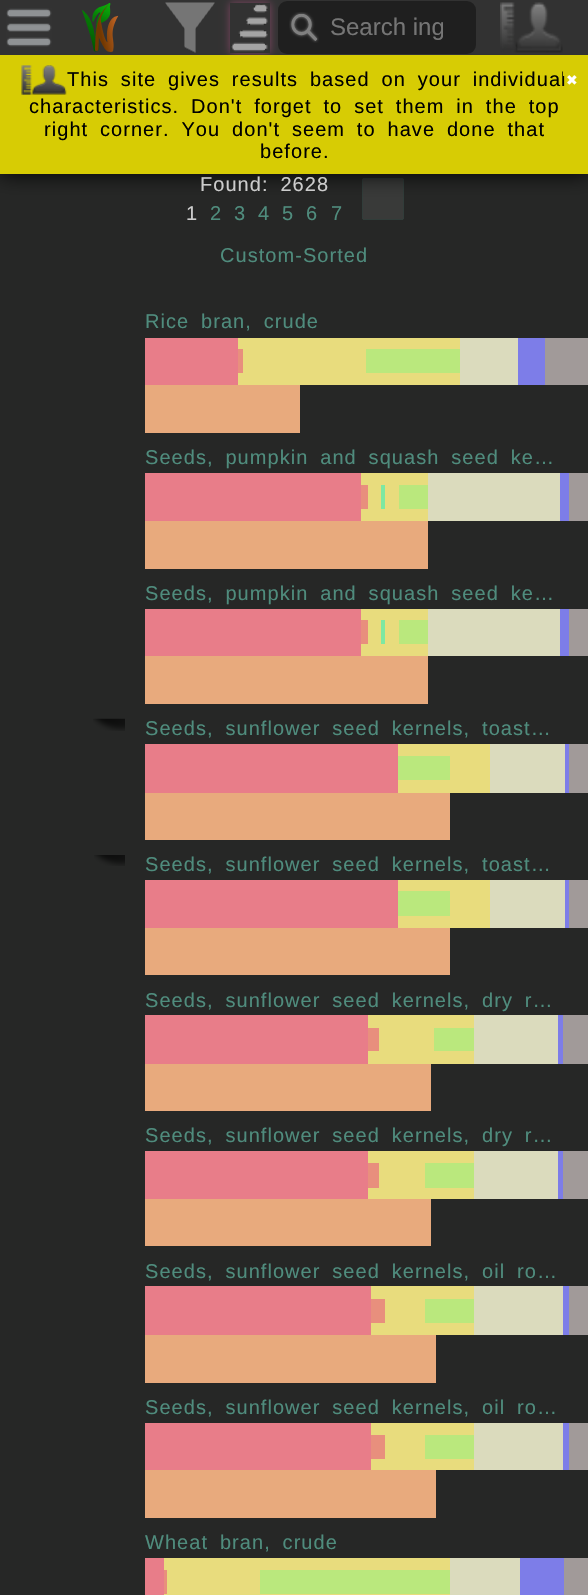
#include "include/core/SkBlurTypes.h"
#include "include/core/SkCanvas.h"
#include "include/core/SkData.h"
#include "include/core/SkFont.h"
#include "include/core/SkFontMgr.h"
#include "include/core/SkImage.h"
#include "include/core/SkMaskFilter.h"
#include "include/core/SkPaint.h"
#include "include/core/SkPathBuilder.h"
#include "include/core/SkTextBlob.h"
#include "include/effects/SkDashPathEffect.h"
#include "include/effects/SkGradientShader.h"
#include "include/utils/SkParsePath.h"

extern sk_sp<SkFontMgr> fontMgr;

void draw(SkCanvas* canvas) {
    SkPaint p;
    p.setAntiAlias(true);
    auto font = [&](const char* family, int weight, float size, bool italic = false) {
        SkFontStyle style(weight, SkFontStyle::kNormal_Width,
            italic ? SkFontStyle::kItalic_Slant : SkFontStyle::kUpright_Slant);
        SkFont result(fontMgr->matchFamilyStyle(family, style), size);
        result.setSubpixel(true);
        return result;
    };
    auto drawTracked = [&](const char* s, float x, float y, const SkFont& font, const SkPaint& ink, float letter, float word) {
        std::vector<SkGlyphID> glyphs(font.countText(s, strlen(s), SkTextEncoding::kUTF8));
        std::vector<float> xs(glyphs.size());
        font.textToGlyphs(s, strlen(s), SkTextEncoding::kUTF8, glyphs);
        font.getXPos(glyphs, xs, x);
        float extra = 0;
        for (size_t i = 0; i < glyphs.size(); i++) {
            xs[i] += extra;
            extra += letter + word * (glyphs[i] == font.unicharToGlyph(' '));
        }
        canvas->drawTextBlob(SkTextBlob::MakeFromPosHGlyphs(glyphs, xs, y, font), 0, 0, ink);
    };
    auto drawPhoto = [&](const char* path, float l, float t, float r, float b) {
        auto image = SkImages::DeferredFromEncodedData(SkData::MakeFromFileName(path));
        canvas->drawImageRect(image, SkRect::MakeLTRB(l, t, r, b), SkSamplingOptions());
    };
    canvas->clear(0xFF262726);
    canvas->save();
    canvas->clipPath(SkPathBuilder(SkPathFillType::kEvenOdd).moveTo(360, 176).lineTo(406, 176).lineTo(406, 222).lineTo(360, 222).close().moveTo(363, 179).lineTo(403, 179).lineTo(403, 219).lineTo(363, 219).close().detach(), true);
    p.setColor(0xFF64AA99);
    p.setMaskFilter(SkMaskFilter::MakeBlur(kNormal_SkBlurStyle, 0.5f));
    canvas->drawRect(SkRect::MakeLTRB(363, 179, 403, 219), p);
    p.setMaskFilter(nullptr);
    canvas->restore();
    p.setColor(0x33808080);
    canvas->drawRect(SkRect::MakeLTRB(363, 179, 403, 219), p);
    p.setColor(0xFF000000);
    p.setMaskFilter(SkMaskFilter::MakeBlur(kNormal_SkBlurStyle, 10.5f));
    canvas->drawRect(SkRect::MakeLTRB(0, 0, 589, 174), p);
    p.setMaskFilter(nullptr);
    p.setColor(0xFF323232);
    canvas->drawRect(SkRect::MakeLTRB(0, 0, 588, 55), p);
    drawPhoto("media/1.png", 6, 8, 52, 47);
    drawPhoto("media/2.png", 82, 3, 119, 52);
    drawPhoto("media/3.png", 165, 2, 215, 53);
    canvas->save();
    canvas->clipPath(SkPathBuilder(SkPathFillType::kEvenOdd).moveTo(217, 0).lineTo(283, 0).lineTo(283, 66).lineTo(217, 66).close().moveTo(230, 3).lineTo(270, 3).lineTo(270, 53).lineTo(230, 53).close().detach(), true);
    p.setColor(0xFF7D4561);
    p.setMaskFilter(SkMaskFilter::MakeBlur(kNormal_SkBlurStyle, 4));
    canvas->drawRect(SkRect::MakeLTRB(230, 3, 270, 53), p);
    p.setMaskFilter(nullptr);
    canvas->restore();
    drawPhoto("media/4.png", 231, 4, 268, 52);
    p.setColor(0xFF1F1F1F);
    canvas->drawRoundRect(SkRect::MakeLTRB(278, 1, 476, 54), 9, 9, p);
    drawPhoto("media/5.png", 289, 12, 319, 43);
    canvas->save();
    canvas->clipRect(SkRect::MakeLTRB(330, 14, 443, 41));
    auto font1 = font("Liberation Sans", 400, 24);
    p.setColor(0xFF757575);
    canvas->drawString("Search ing", 330, 35, font1, p);
    canvas->restore();
    drawPhoto("media/6.png", 500, 2, 563, 53);
    p.setColor(0xFFD7CC04);
    canvas->drawRect(SkRect::MakeLTRB(0, 55, 588, 174), p);
    drawPhoto("media/7.png", 21, 65, 67, 95);
    auto font2 = font("Liberation Sans", 400, 20);
    p.setColor(0xFF000000);
    {
        const struct { const char* s; float x, y; } items[] = {
            {"This site gives results based on your individual", 67, 86},
            {"characteristics. Don't forget to set them in the top", 29, 113},
            {"right corner. You don't seem to have done that", 44, 136},
        };
        for (auto [s, x, y] : items) {
            drawTracked(s, x, y, font2, p, 1.05f, 5.25f);
        }
    }
    drawTracked("before.", 260, 158, font2, p, 1.05f, 0);
    p.setColor(0xFFD7CC04);
    canvas->drawRect(SkRect::MakeLTRB(563, 71, 565, 76), p);
    auto font3 = font("DejaVu Sans", 400, 14);
    p.setColor(0xFFFFFFFF);
    drawTracked("✖", 566, 85, font3, p, 1.05f, 0);
    p.setColor(0xFFCCCCCC);
    drawTracked("Found: 2628", 200, 191, font2, p, 1.05f, 5.25f);
    drawTracked("1", 186, 220, font2, p, 1.05f, 0);
    p.setColor(0xFF4F8C7D);
    {
        const struct { const char* s; float x, y; } items[] = {
            {"2", 210, 220},
            {"3", 234, 220},
            {"4", 258, 220},
            {"5", 282, 220},
            {"6", 306, 220},
            {"7", 331, 220},
            {"Custom-Sorted", 220, 262},
        };
        for (auto [s, x, y] : items) {
            drawTracked(s, x, y, font2, p, 1.05f, 0);
        }
    }
    drawTracked("Rice bran, crude", 145, 328, font2, p, 1.05f, 5.25f);
    {
        const struct { float l, t, r, b; SkColor color; } items[] = {
            {145, 338, 238, 385, 0xFFE87D89},
            {238, 338, 460, 385, 0xFFE8DC7D},
            {238, 349, 243, 373, 0xFFE88F7D},
            {366, 349, 460, 373, 0xFFBAE87D},
            {460, 338, 518, 385, 0xFFDBDBBD},
            {518, 338, 545, 385, 0xFF7D7DE8},
            {545, 338, 588, 385, 0xFFA19A99},
            {145, 385, 300, 433, 0xFFE8AA7D},
        };
        for (auto [l, t, r, b, color] : items) {
            p.setColor(color);
            canvas->drawRect(SkRect::MakeLTRB(l, t, r, b), p);
        }
    }
    p.setColor(0xFF4F8C7D);
    drawTracked("Seeds, pumpkin and squash seed ke…", 145, 464, font2, p, 1.05f, 5.25f);
    {
        const struct { float l, t, r, b; SkColor color; } items[] = {
            {145, 473, 361, 521, 0xFFE87D89},
            {361, 473, 428, 521, 0xFFE8DC7D},
            {361, 485, 368, 509, 0xFFE88F7D},
            {381, 485, 385, 509, 0xFF7DE8A2},
            {399, 485, 428, 509, 0xFFBAE87D},
            {428, 473, 560, 521, 0xFFDBDBBD},
            {560, 473, 569, 521, 0xFF7D7DE8},
            {569, 473, 588, 521, 0xFFA19A99},
            {145, 521, 428, 569, 0xFFE8AA7D},
        };
        for (auto [l, t, r, b, color] : items) {
            p.setColor(color);
            canvas->drawRect(SkRect::MakeLTRB(l, t, r, b), p);
        }
    }
    p.setColor(0xFF4F8C7D);
    drawTracked("Seeds, pumpkin and squash seed ke…", 145, 600, font2, p, 1.05f, 5.25f);
    {
        const struct { float l, t, r, b; SkColor color; } items[] = {
            {145, 609, 361, 656, 0xFFE87D89},
            {361, 609, 428, 656, 0xFFE8DC7D},
            {361, 620, 368, 644, 0xFFE88F7D},
            {381, 620, 385, 644, 0xFF7DE8A2},
            {399, 620, 428, 644, 0xFFBAE87D},
            {428, 609, 560, 656, 0xFFDBDBBD},
            {560, 609, 569, 656, 0xFF7D7DE8},
            {569, 609, 588, 656, 0xFFA19A99},
            {145, 656, 428, 704, 0xFFE8AA7D},
        };
        for (auto [l, t, r, b, color] : items) {
            p.setColor(color);
            canvas->drawRect(SkRect::MakeLTRB(l, t, r, b), p);
        }
    }
    drawPhoto("media/8.png", 93, 718, 125, 731);
    p.setColor(0xFF4F8C7D);
    drawTracked("Seeds, sunflower seed kernels, toast…", 145, 735, font2, p, 1.05f, 5.25f);
    {
        const struct { float l, t, r, b; SkColor color; } items[] = {
            {145, 744, 398, 793, 0xFFE87D89},
            {398, 744, 490, 793, 0xFFE8DC7D},
            {398, 756, 450, 780, 0xFFBAE87D},
            {490, 744, 565, 793, 0xFFDBDBBD},
            {565, 744, 569, 793, 0xFF7D7DE8},
            {569, 744, 588, 793, 0xFFA19A99},
            {145, 793, 450, 840, 0xFFE8AA7D},
        };
        for (auto [l, t, r, b, color] : items) {
            p.setColor(color);
            canvas->drawRect(SkRect::MakeLTRB(l, t, r, b), p);
        }
    }
    drawPhoto("media/9.png", 94, 855, 125, 866);
    p.setColor(0xFF4F8C7D);
    drawTracked("Seeds, sunflower seed kernels, toast…", 145, 871, font2, p, 1.05f, 5.25f);
    {
        const struct { float l, t, r, b; SkColor color; } items[] = {
            {145, 880, 398, 928, 0xFFE87D89},
            {398, 880, 490, 928, 0xFFE8DC7D},
            {398, 891, 450, 916, 0xFFBAE87D},
            {490, 880, 565, 928, 0xFFDBDBBD},
            {565, 880, 569, 928, 0xFF7D7DE8},
            {569, 880, 588, 928, 0xFFA19A99},
            {145, 928, 450, 975, 0xFFE8AA7D},
        };
        for (auto [l, t, r, b, color] : items) {
            p.setColor(color);
            canvas->drawRect(SkRect::MakeLTRB(l, t, r, b), p);
        }
    }
    p.setColor(0xFF4F8C7D);
    drawTracked("Seeds, sunflower seed kernels, dry r…", 145, 1007, font2, p, 1.05f, 5.25f);
    {
        const struct { float l, t, r, b; SkColor color; } items[] = {
            {145, 1015, 368, 1064, 0xFFE87D89},
            {368, 1015, 474, 1064, 0xFFE8DC7D},
            {368, 1028, 379, 1051, 0xFFE88F7D},
            {434, 1028, 474, 1051, 0xFFBAE87D},
            {474, 1015, 558, 1064, 0xFFDBDBBD},
            {558, 1015, 563, 1064, 0xFF7D7DE8},
            {563, 1015, 588, 1064, 0xFFA19A99},
            {145, 1064, 431, 1111, 0xFFE8AA7D},
        };
        for (auto [l, t, r, b, color] : items) {
            p.setColor(color);
            canvas->drawRect(SkRect::MakeLTRB(l, t, r, b), p);
        }
    }
    p.setColor(0xFF4F8C7D);
    drawTracked("Seeds, sunflower seed kernels, dry r…", 145, 1142, font2, p, 1.05f, 5.25f);
    {
        const struct { float l, t, r, b; SkColor color; } items[] = {
            {145, 1151, 368, 1199, 0xFFE87D89},
            {368, 1151, 474, 1199, 0xFFE8DC7D},
            {368, 1163, 379, 1188, 0xFFE88F7D},
            {425, 1163, 474, 1188, 0xFFBAE87D},
            {474, 1151, 558, 1199, 0xFFDBDBBD},
            {558, 1151, 563, 1199, 0xFF7D7DE8},
            {563, 1151, 588, 1199, 0xFFA19A99},
            {145, 1199, 431, 1246, 0xFFE8AA7D},
        };
        for (auto [l, t, r, b, color] : items) {
            p.setColor(color);
            canvas->drawRect(SkRect::MakeLTRB(l, t, r, b), p);
        }
    }
    p.setColor(0xFF4F8C7D);
    drawTracked("Seeds, sunflower seed kernels, oil ro…", 145, 1278, font2, p, 1.05f, 5.25f);
    {
        const struct { float l, t, r, b; SkColor color; } items[] = {
            {145, 1286, 371, 1335, 0xFFE87D89},
            {371, 1286, 474, 1335, 0xFFE8DC7D},
            {371, 1299, 385, 1323, 0xFFE88F7D},
            {425, 1299, 474, 1323, 0xFFBAE87D},
            {474, 1286, 563, 1335, 0xFFDBDBBD},
            {563, 1286, 569, 1335, 0xFF7D7DE8},
            {569, 1286, 588, 1335, 0xFFA19A99},
            {145, 1335, 436, 1383, 0xFFE8AA7D},
        };
        for (auto [l, t, r, b, color] : items) {
            p.setColor(color);
            canvas->drawRect(SkRect::MakeLTRB(l, t, r, b), p);
        }
    }
    p.setColor(0xFF4F8C7D);
    drawTracked("Seeds, sunflower seed kernels, oil ro…", 145, 1414, font2, p, 1.05f, 5.25f);
    {
        const struct { float l, t, r, b; SkColor color; } items[] = {
            {145, 1423, 371, 1470, 0xFFE87D89},
            {371, 1423, 474, 1470, 0xFFE8DC7D},
            {371, 1435, 385, 1459, 0xFFE88F7D},
            {425, 1435, 474, 1459, 0xFFBAE87D},
            {474, 1423, 563, 1470, 0xFFDBDBBD},
            {563, 1423, 569, 1470, 0xFF7D7DE8},
            {569, 1423, 588, 1470, 0xFFA19A99},
            {145, 1470, 436, 1518, 0xFFE8AA7D},
        };
        for (auto [l, t, r, b, color] : items) {
            p.setColor(color);
            canvas->drawRect(SkRect::MakeLTRB(l, t, r, b), p);
        }
    }
    p.setColor(0xFF4F8C7D);
    drawTracked("Wheat bran, crude", 145, 1549, font2, p, 1.05f, 5.25f);
    {
        const struct { float l, t, r, b; SkColor color; } items[] = {
            {145, 1558, 164, 1595, 0xFFE87D89},
            {164, 1558, 450, 1595, 0xFFE8DC7D},
            {164, 1570, 167, 1594, 0xFFE88F7D},
            {260, 1570, 450, 1594, 0xFFBAE87D},
            {450, 1558, 520, 1595, 0xFFDBDBBD},
            {520, 1558, 564, 1595, 0xFF7D7DE8},
            {564, 1558, 588, 1595, 0xFFA19A99},
        };
        for (auto [l, t, r, b, color] : items) {
            p.setColor(color);
            canvas->drawRect(SkRect::MakeLTRB(l, t, r, b), p);
        }
    }
}
